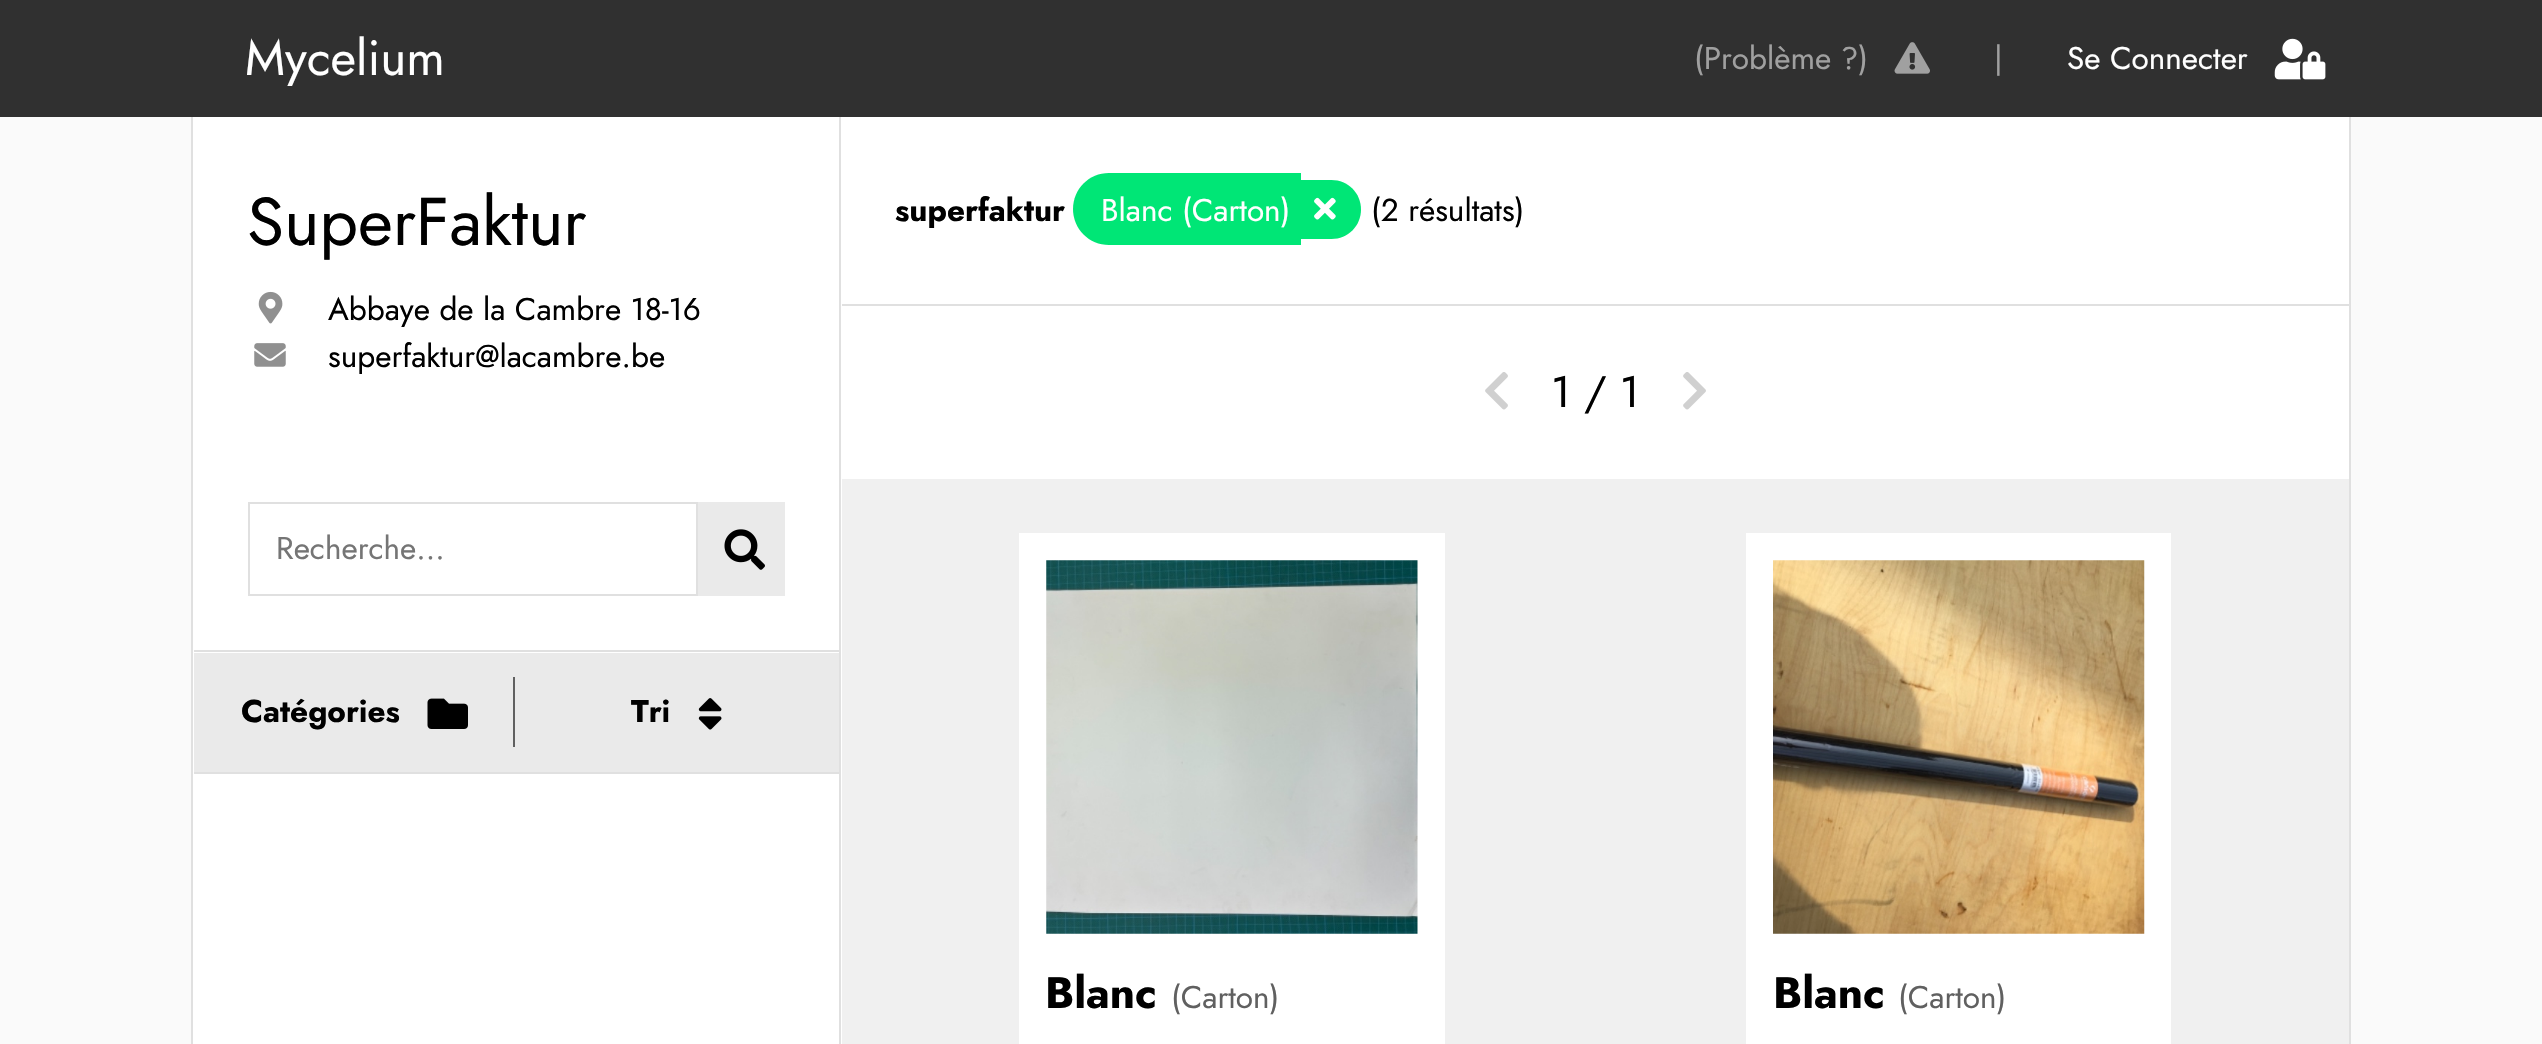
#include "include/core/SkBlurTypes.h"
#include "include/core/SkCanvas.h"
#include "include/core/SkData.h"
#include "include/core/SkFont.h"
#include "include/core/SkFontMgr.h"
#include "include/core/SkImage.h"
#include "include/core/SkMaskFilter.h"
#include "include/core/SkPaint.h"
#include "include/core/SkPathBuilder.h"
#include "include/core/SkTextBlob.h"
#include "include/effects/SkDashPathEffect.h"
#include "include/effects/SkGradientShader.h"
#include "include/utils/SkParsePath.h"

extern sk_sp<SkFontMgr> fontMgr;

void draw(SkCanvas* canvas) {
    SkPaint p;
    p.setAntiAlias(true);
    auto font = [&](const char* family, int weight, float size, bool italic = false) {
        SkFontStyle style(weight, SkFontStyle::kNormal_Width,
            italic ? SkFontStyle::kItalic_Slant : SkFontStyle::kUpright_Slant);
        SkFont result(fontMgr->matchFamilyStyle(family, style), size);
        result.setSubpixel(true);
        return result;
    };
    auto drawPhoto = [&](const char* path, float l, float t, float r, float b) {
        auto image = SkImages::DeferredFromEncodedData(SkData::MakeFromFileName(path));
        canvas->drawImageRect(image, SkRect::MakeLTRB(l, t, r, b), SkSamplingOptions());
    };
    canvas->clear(0xFFFAFAFA);
    p.setColor(0xFF303030);
    canvas->drawRect(SkRect::MakeLTRB(0, 0, 2542, 117), p);
    auto font1 = font("Jost", 400, 49.5f);
    p.setColor(0xFFFFFFFF);
    canvas->drawString("Mycelium", 245, 75, font1, p);
    auto font2 = font("Jost", 400, 31.5f);
    p.setColor(0xFFA0A0A0);
    canvas->drawString("(Problème ?)", 1694, 69, font2, p);
    drawPhoto("media/1.png", 1894, 42, 1930, 74);
    canvas->drawString("|", 1994, 69, font2, p);
    p.setColor(0xFFFFFFFF);
    canvas->drawString("Se Connecter", 2067, 69, font2, p);
    drawPhoto("media/2.png", 2274, 38, 2326, 80);
    {
        const struct { float l, t, r, b; SkColor color; } items[] = {
            {193, 117, 2349, 1044, 0xFFFFFFFF},
            {191, 117, 193, 1044, 0xFFE0E0E0},
            {839, 117, 841, 1044, 0xFFE0E0E0},
        };
        for (auto [l, t, r, b, color] : items) {
            p.setColor(color);
            canvas->drawRect(SkRect::MakeLTRB(l, t, r, b), p);
        }
    }
    auto font3 = font("Jost", 400, 67.5f);
    p.setColor(0xFF000000);
    canvas->drawString("SuperFaktur", 247, 245, font3, p);
    drawPhoto("media/3.png", 258, 291, 283, 324);
    canvas->drawString("Abbaye de la Cambre 18-16", 328, 320, font2, p);
    drawPhoto("media/4.png", 254, 343, 286, 367);
    canvas->drawString("superfaktur@lacambre.be", 328, 367, font2, p);
    p.setStyle(SkPaint::kStroke_Style);
    p.setStrokeWidth(2);
    p.setColor(0xFFE0E0E0);
    canvas->drawRect(SkRect::MakeLTRB(249, 503, 697, 595), p);
    p.setStyle(SkPaint::kFill_Style);
    p.setColor(0xFF757575);
    canvas->drawString("Recherche...", 276, 559, font2, p);
    p.setColor(0xFFEAEAEA);
    canvas->drawRect(SkRect::MakeLTRB(698, 502, 785, 596), p);
    drawPhoto("media/5.png", 724, 529, 765, 570);
    {
        const struct { float l, t, r, b; SkColor color; } items[] = {
            {194, 650, 839, 652, 0xFFE0E0E0},
            {194, 772, 839, 774, 0xFFE0E0E0},
            {194, 653, 839, 772, 0xFFEAEAEA},
        };
        for (auto [l, t, r, b, color] : items) {
            p.setColor(color);
            canvas->drawRect(SkRect::MakeLTRB(l, t, r, b), p);
        }
    }
    auto font4 = font("Jost", 700, 31.5f);
    p.setColor(0xFF000000);
    canvas->drawString("Catégories", 241, 722, font4, p);
    drawPhoto("media/6.png", 427, 698, 468, 729);
    p.setColor(0xFF606060);
    canvas->drawRect(SkRect::MakeLTRB(513, 677, 515, 747), p);
    p.setColor(0xFF000000);
    canvas->drawString("Tri", 631, 722, font4, p);
    drawPhoto("media/7.png", 698, 698, 722, 730);
    p.setColor(0xFFE0E0E0);
    canvas->drawRect(SkRect::MakeLTRB(2349, 117, 2351, 1044), p);
    canvas->drawRect(SkRect::MakeLTRB(842, 304, 2349, 306), p);
    p.setColor(0xFF000000);
    canvas->drawString("superfaktur", 895, 221, font4, p);
    p.setColor(0xFF00E676);
    canvas->drawPath(SkPathBuilder().moveTo(1109, 173).lineTo(1301, 173).lineTo(1301, 245).lineTo(1109, 245).cubicTo(1089, 245, 1073, 229, 1073, 209).cubicTo(1073, 189, 1089, 173, 1109, 173).close().detach(), p);
    p.setColor(0xFFFFFFFF);
    canvas->drawString("Blanc (Carton)", 1101, 221, font2, p);
    p.setColor(0xFF00E676);
    canvas->drawPath(SkPathBuilder().moveTo(1301, 180).lineTo(1331.5f, 180).cubicTo(1348, 180, 1361, 193, 1361, 209.5f).cubicTo(1361, 226, 1348, 239, 1331.5f, 239).lineTo(1301, 239).close().detach(), p);
    drawPhoto("media/8.png", 1314, 197, 1336, 220);
    p.setColor(0xFF000000);
    canvas->drawString("(2 résultats)", 1371, 221, font2, p);
    drawPhoto("media/9.png", 1485, 372, 1508, 410);
    auto font5 = font("Jost", 400, 44);
    canvas->drawString("1 / 1", 1551, 407, font5, p);
    drawPhoto("media/10.png", 1683, 372, 1706, 410);
    p.setColor(0xFFF0F0F0);
    canvas->drawRect(SkRect::MakeLTRB(842, 479, 2349, 1044), p);
    p.setColor(0xFFFFFFFF);
    canvas->drawRect(SkRect::MakeLTRB(1019, 533, 1445, 1044), p);
    drawPhoto("media/11.png", 1046, 560, 1418, 934);
    auto font6 = font("Jost", 700, 44);
    p.setColor(0xFF000000);
    canvas->drawString("Blanc", 1045, 1008, font6, p);
    p.setColor(0xFF606060);
    canvas->drawString("(Carton)", 1171, 1008, font2, p);
    p.setColor(0xFFFFFFFF);
    canvas->drawRect(SkRect::MakeLTRB(1746, 533, 2171, 1044), p);
    drawPhoto("media/12.png", 1773, 560, 2145, 934);
    p.setColor(0xFF000000);
    canvas->drawString("Blanc", 1773, 1008, font6, p);
    p.setColor(0xFF606060);
    canvas->drawString("(Carton)", 1898, 1008, font2, p);
}
